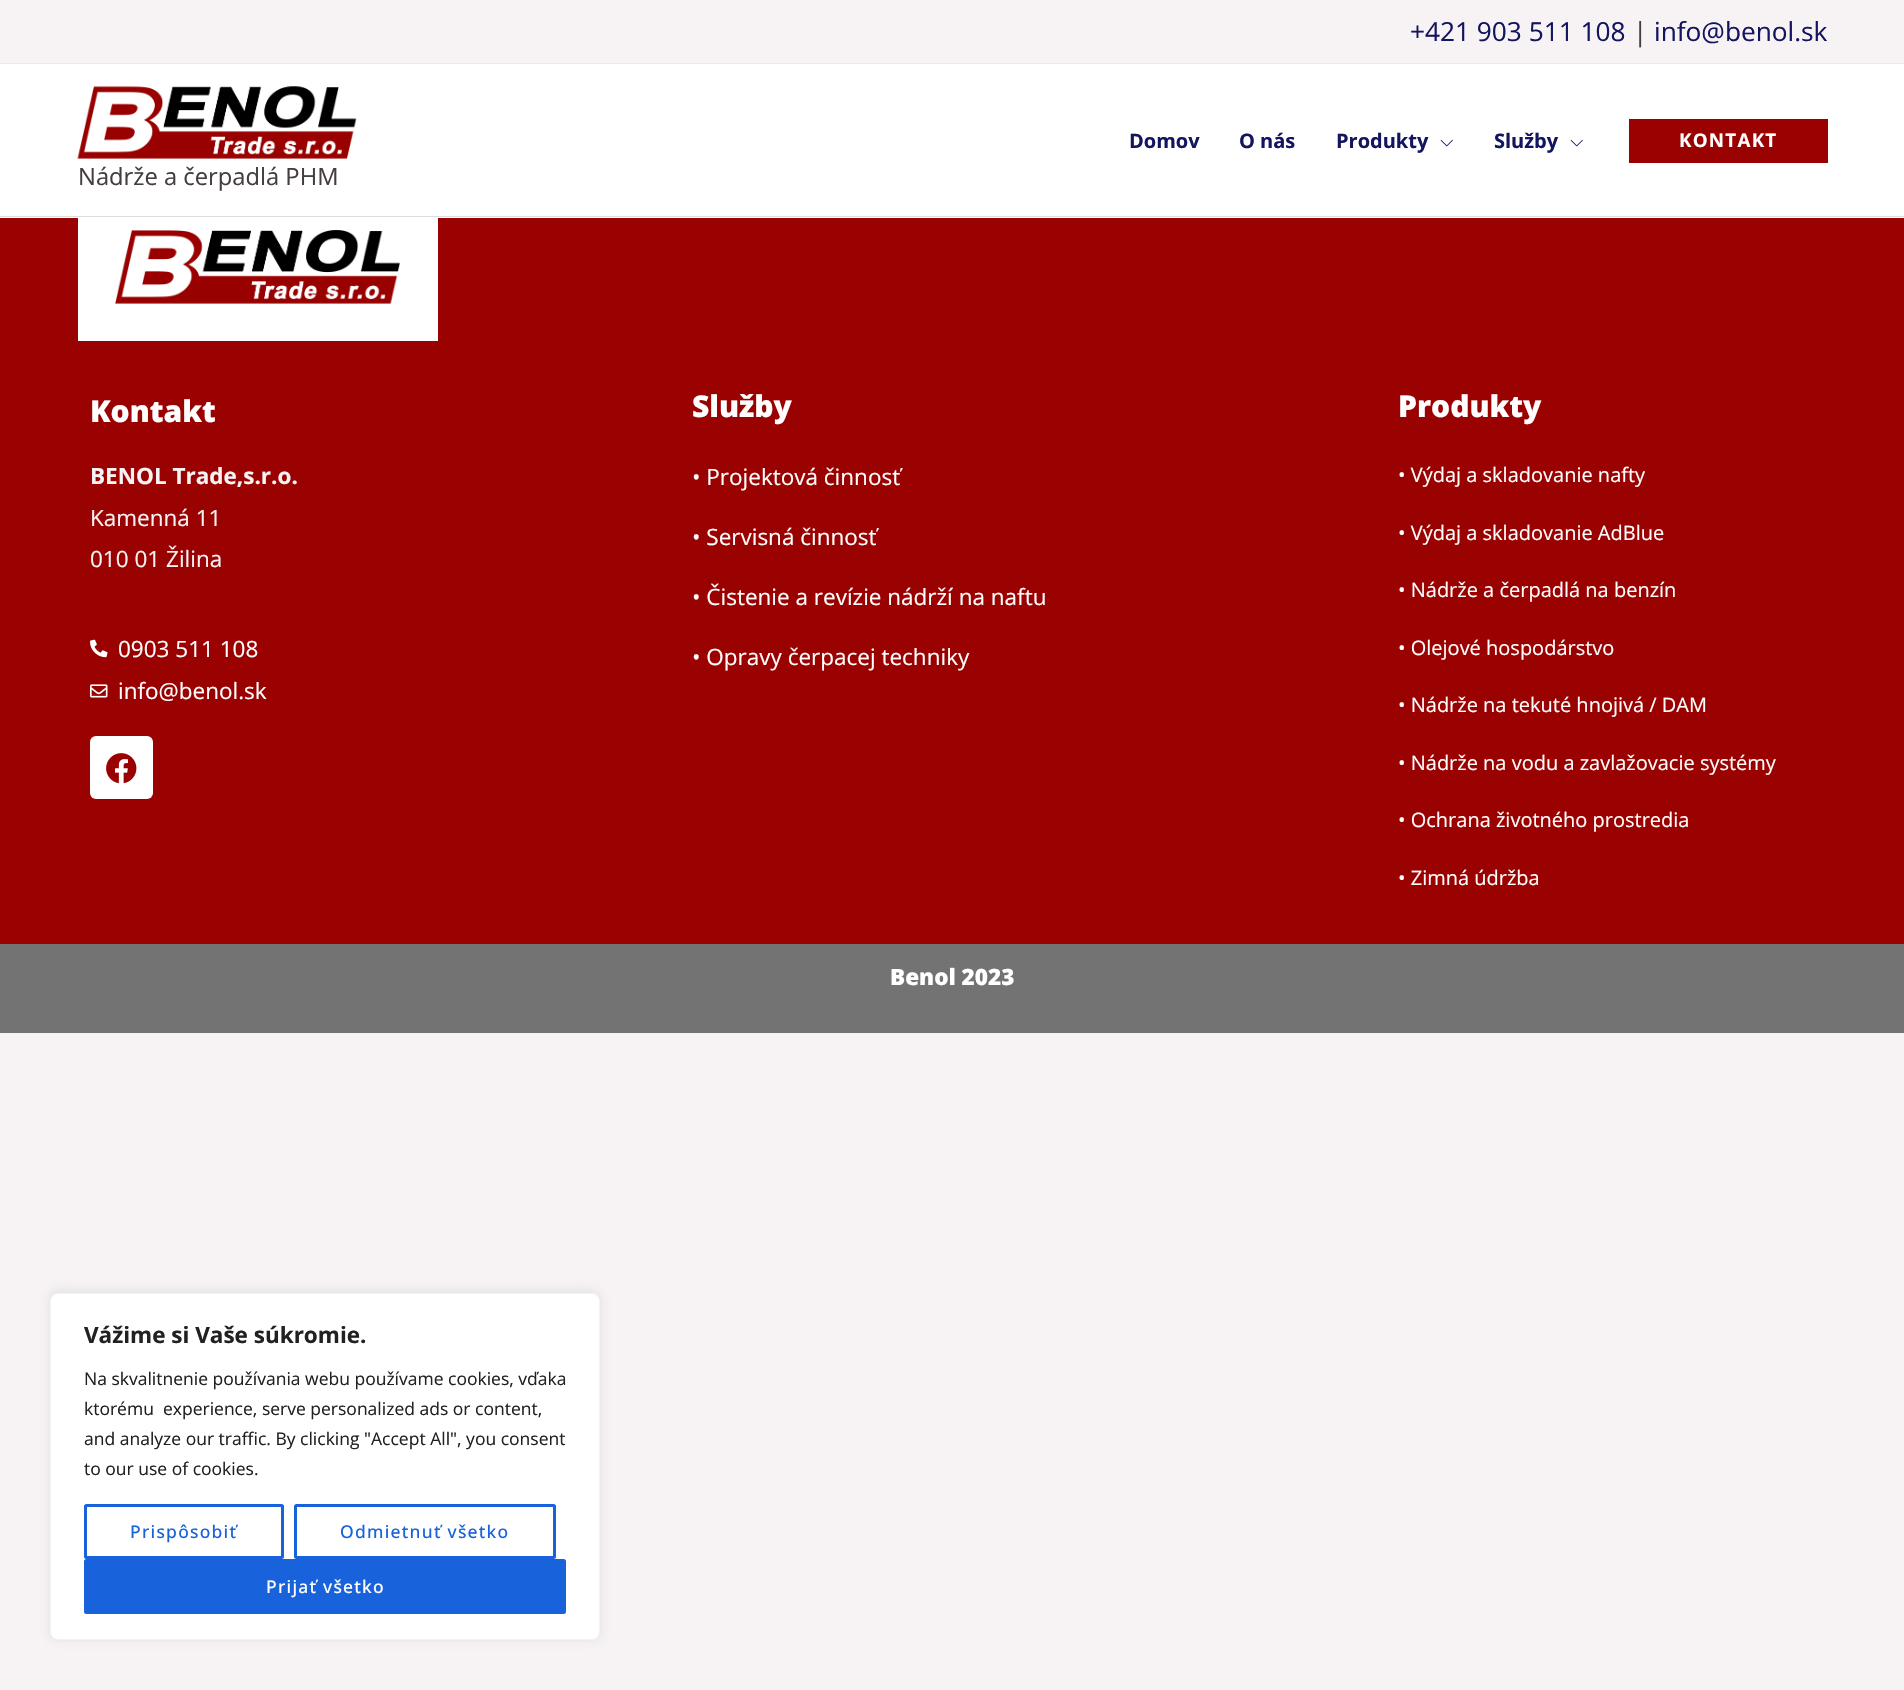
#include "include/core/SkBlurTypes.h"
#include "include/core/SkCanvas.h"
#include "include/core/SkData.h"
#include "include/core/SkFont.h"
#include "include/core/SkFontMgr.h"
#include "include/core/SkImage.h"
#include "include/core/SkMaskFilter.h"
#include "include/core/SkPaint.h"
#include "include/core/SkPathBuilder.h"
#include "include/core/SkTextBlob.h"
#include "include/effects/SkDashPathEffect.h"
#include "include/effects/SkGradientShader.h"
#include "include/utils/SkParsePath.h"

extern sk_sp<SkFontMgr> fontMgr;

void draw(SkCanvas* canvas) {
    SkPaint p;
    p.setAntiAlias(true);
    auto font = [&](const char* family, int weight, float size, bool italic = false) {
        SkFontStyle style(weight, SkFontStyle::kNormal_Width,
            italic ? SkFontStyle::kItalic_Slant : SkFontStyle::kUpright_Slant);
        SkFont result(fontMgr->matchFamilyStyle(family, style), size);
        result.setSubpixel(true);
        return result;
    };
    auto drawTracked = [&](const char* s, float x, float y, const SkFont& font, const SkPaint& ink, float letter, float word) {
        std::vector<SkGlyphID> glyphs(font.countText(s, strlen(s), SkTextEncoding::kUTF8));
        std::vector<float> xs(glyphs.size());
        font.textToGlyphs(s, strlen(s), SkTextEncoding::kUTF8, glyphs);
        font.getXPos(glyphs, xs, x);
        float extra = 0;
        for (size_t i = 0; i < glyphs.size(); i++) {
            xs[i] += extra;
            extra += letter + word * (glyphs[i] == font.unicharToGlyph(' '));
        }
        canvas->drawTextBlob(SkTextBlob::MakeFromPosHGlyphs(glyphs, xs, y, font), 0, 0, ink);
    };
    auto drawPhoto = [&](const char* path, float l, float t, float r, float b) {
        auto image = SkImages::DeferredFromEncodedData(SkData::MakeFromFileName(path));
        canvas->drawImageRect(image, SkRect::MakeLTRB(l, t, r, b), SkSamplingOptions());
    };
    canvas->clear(0xFFF7F3F5);
    p.setColor(0xFFEAEAEA);
    canvas->drawRect(SkRect::MakeLTRB(0, 63, 1904, 64), p);
    auto font1 = font("Open Sans", 400, 26.25f);
    p.setColor(0xFF14155F);
    canvas->drawString("+421 903 511 108", 1410, 41, font1, p);
    p.setColor(0xFF453E3E);
    canvas->drawString("|", 1633, 41, font1, p);
    p.setColor(0xFF14155F);
    canvas->drawString("info@benol.sk", 1654, 41, font1, p);
    p.setColor(0xFFFFFFFF);
    canvas->drawRect(SkRect::MakeLTRB(0, 64, 1904, 218), p);
    p.setColor(0xFFDDDDDD);
    canvas->drawRect(SkRect::MakeLTRB(0, 216, 1904, 217), p);
    auto font2 = font("Open Sans", 700, 20);
    p.setColor(0xFF14155F);
    {
        const struct { const char* s; float x, y; } items[] = {
            {"Domov", 1129, 148},
            {"O nás", 1239, 148},
            {"Produkty", 1336, 148},
        };
        for (auto [s, x, y] : items) {
            canvas->drawString(s, x, y, font2, p);
        }
    }
    drawPhoto("media/1.png", 1440, 139, 1453, 147);
    canvas->drawString("Služby", 1494, 148, font2, p);
    drawPhoto("media/1.png", 1570, 139, 1583, 147);
    p.setColor(0xFF9A0201);
    canvas->drawRect(SkRect::MakeLTRB(1629, 119, 1828, 163), p);
    auto font3 = font("Open Sans", 700, 18.75f);
    p.setColor(0xFFFFFFFF);
    drawTracked("KONTAKT", 1679, 147, font3, p, 1.25f, 0);
    drawPhoto("media/2.png", 77, 86, 357, 159);
    auto font4 = font("Open Sans", 400, 23.75f);
    p.setColor(0xFF453E3E);
    canvas->drawString("Nádrže a čerpadlá PHM", 78, 185, font4, p);
    p.setColor(0xFF9A0201);
    canvas->drawRect(SkRect::MakeLTRB(0, 218, 1904, 944), p);
    p.setColor(0xFFFFFFFF);
    canvas->drawRect(SkRect::MakeLTRB(78, 218, 438, 341), p);
    drawPhoto("media/3.png", 115, 230, 400, 304);
    auto font5 = font("Open Sans", 800, 30);
    canvas->drawString("Kontakt", 90, 422, font5, p);
    auto font6 = font("Open Sans", 700, 22.5f);
    p.setColor(0xFFF7F3F5);
    canvas->drawString("BENOL Trade,s.r.o.", 90, 484, font6, p);
    auto font7 = font("Open Sans", 400, 22.5f);
    canvas->drawString("Kamenná 11", 90, 526, font7, p);
    canvas->drawString("010 01 Žilina", 90, 567, font7, p);
    drawPhoto("media/4.png", 90, 639, 108, 658);
    p.setColor(0xFFFFFFFF);
    canvas->drawString("0903 511 108", 118, 657, font7, p);
    drawPhoto("media/5.png", 90, 684, 108, 698);
    canvas->drawString("info@benol.sk", 118, 699, font7, p);
    canvas->drawRoundRect(SkRect::MakeLTRB(90, 736, 153, 799), 6, 6, p);
    drawPhoto("media/6.png", 106, 753, 137, 784);
    canvas->drawString("Služby", 692, 417, font5, p);
    {
        const struct { const char* s; float x, y; } items[] = {
            {"• Projektová činnosť", 692, 485},
            {"• Servisná činnosť", 692, 545},
            {"• Čistenie a revízie nádrží na naftu", 692, 605},
            {"• Opravy čerpacej techniky", 692, 665},
        };
        for (auto [s, x, y] : items) {
            canvas->drawString(s, x, y, font7, p);
        }
    }
    canvas->drawString("Produkty", 1398, 417, font5, p);
    auto font8 = font("Open Sans", 400, 20);
    {
        const struct { const char* s; float x, y; } items[] = {
            {"• Výdaj a skladovanie nafty", 1398, 482},
            {"• Výdaj a skladovanie AdBlue", 1398, 540},
            {"• Nádrže a čerpadlá na benzín", 1398, 597},
            {"• Olejové hospodárstvo", 1398, 655},
            {"• Nádrže na tekuté hnojivá / DAM", 1398, 712},
            {"• Nádrže na vodu a zavlažovacie systémy", 1398, 770},
            {"• Ochrana životného prostredia", 1398, 827},
            {"• Zimná údržba", 1398, 885},
        };
        for (auto [s, x, y] : items) {
            canvas->drawString(s, x, y, font8, p);
        }
    }
    p.setColor(0xFF737373);
    canvas->drawRect(SkRect::MakeLTRB(0, 944, 1904, 1033), p);
    auto font9 = font("Open Sans", 800, 22.5f);
    p.setColor(0xFFFFFFFF);
    canvas->drawString("Benol 2023", 890, 985, font9, p);
    p.setColor(0x4DACABAB);
    p.setMaskFilter(SkMaskFilter::MakeBlur(kNormal_SkBlurStyle, 6));
    canvas->drawRoundRect(SkRect::MakeLTRB(50, 1291, 600, 1639), 8, 8, p);
    p.setMaskFilter(nullptr);
    p.setColor(0xFFFFFFFF);
    canvas->drawRoundRect(SkRect::MakeLTRB(50.5f, 1293.5f, 599.5f, 1639.5f), 7.5f, 7.5f, p);
    p.setStyle(SkPaint::kStroke_Style);
    p.setStrokeWidth(1);
    p.setColor(0xFFF4F4F4);
    canvas->drawRoundRect(SkRect::MakeLTRB(50.5f, 1293.5f, 599.5f, 1639.5f), 7.5f, 7.5f, p);
    p.setStyle(SkPaint::kFill_Style);
    p.setColor(0xFF212121);
    canvas->drawString("Vážime si Vaše súkromie.", 84, 1343, font6, p);
    auto font10 = font("Open Sans", 400, 17.5f);
    {
        const struct { const char* s; float x, y; } items[] = {
            {"Na skvalitnenie používania webu používame cookies, vďaka", 84, 1385},
            {"ktorému  experience, serve personalized ads or content,", 84, 1415},
            {"and analyze our traffic. By clicking \"Accept All\", you consent", 84, 1445},
            {"to our use of cookies.", 84, 1475},
        };
        for (auto [s, x, y] : items) {
            canvas->drawString(s, x, y, font10, p);
        }
    }
    p.setStyle(SkPaint::kStroke_Style);
    p.setStrokeWidth(3);
    p.setColor(0xFF1863DC);
    canvas->drawRoundRect(SkRect::MakeLTRB(85.5f, 1505.5f, 282.5f, 1557.5f), 1, 1, p);
    auto font11 = font("Open Sans", 500, 17.5f);
    p.setStyle(SkPaint::kFill_Style);
    drawTracked("Prispôsobiť", 130, 1538, font11, p, 1.25f, 0);
    p.setStyle(SkPaint::kStroke_Style);
    canvas->drawRoundRect(SkRect::MakeLTRB(295.5f, 1505.5f, 554.5f, 1557.5f), 1, 1, p);
    p.setStyle(SkPaint::kFill_Style);
    drawTracked("Odmietnuť všetko", 340, 1538, font11, p, 1.25f, 0);
    canvas->drawRoundRect(SkRect::MakeLTRB(85.5f, 1560.5f, 564.5f, 1612.5f), 1, 1, p);
    p.setStyle(SkPaint::kStroke_Style);
    canvas->drawRoundRect(SkRect::MakeLTRB(85.5f, 1560.5f, 564.5f, 1612.5f), 1, 1, p);
    p.setStyle(SkPaint::kFill_Style);
    p.setColor(0xFFFFFFFF);
    drawTracked("Prijať všetko", 266, 1593, font11, p, 1.25f, 0);
}
